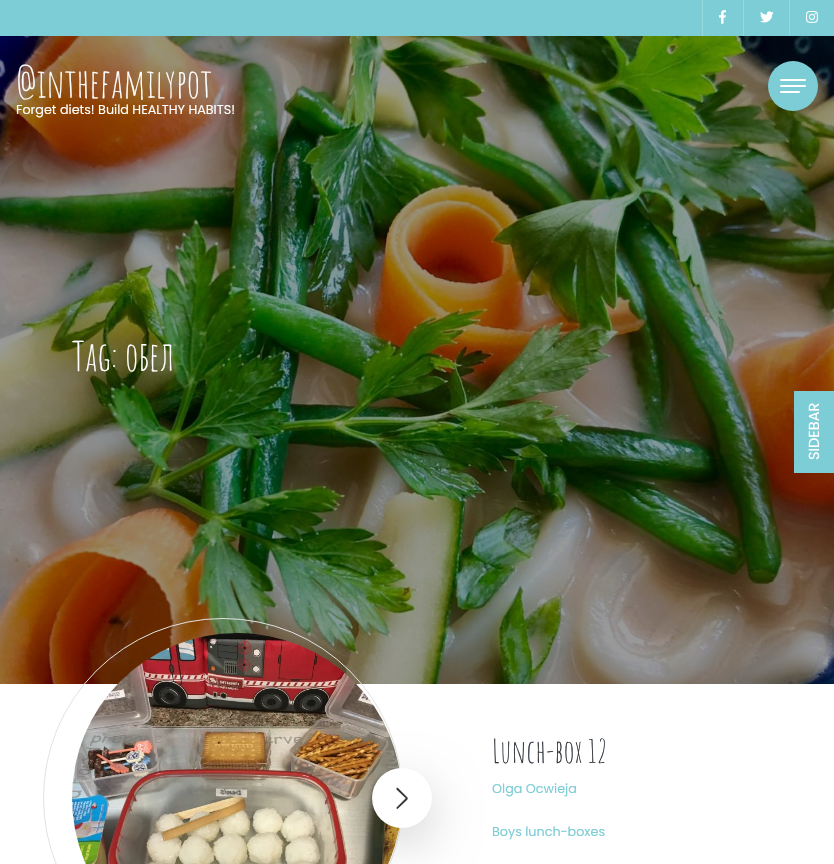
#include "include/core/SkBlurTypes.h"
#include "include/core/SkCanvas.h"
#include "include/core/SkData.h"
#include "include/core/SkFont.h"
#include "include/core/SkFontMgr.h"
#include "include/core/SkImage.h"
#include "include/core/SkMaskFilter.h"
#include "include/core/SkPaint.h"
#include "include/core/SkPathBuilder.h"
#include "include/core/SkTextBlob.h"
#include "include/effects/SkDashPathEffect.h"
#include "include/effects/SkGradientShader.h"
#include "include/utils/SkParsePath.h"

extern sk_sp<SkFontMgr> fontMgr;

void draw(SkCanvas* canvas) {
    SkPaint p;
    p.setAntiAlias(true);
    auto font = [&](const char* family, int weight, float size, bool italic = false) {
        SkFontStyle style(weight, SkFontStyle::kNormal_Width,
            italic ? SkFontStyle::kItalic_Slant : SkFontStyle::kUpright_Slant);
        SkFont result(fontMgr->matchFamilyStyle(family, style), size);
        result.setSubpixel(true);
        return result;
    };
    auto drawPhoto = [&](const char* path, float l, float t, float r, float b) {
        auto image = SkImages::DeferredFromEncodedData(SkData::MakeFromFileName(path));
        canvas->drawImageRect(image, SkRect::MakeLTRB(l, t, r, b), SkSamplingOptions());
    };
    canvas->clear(0xFFFFFFFF);
    p.setColor(0xFF7DCDD6);
    canvas->drawRect(SkRect::MakeLTRB(0, 0, 834, 36), p);
    p.setColor(0xFF97D7DE);
    canvas->drawRect(SkRect::MakeLTRB(702, 0, 703, 36), p);
    drawPhoto("media/1.png", 719, 10, 726, 24);
    canvas->drawRect(SkRect::MakeLTRB(743, 0, 744, 36), p);
    drawPhoto("media/2.png", 760, 11, 774, 23);
    canvas->drawRect(SkRect::MakeLTRB(789, 0, 790, 36), p);
    drawPhoto("media/3.png", 806, 10, 818, 23);
    drawPhoto("media/4.png", 0, 36, 834, 684);
    auto font1 = font("Amatic SC", 400, 40);
    p.setColor(0xFFFFFFFF);
    canvas->drawString("@inthefamilypot", 16, 98, font1, p);
    auto font2 = font("Poppins", 400, 12.75f);
    canvas->drawString("Forget diets! Build HEALTHY HABITS!", 16, 114, font2, p);
    p.setColor(0xFF7DCDD6);
    canvas->drawCircle(793, 86, 25, p);
    p.setColor(0xFFFFFFFF);
    canvas->drawRoundRect(SkRect::MakeLTRB(780, 79, 806, 81), 1, 1, p);
    canvas->drawRoundRect(SkRect::MakeLTRB(780, 85, 806, 87), 1, 1, p);
    canvas->drawRoundRect(SkRect::MakeLTRB(780, 91, 800, 93), 1, 1, p);
    canvas->drawString("Tag: обел", 72, 371, font1, p);
    p.setColor(0xFF7DCDD6);
    canvas->drawRect(SkRect::MakeLTRB(794, 391, 834, 473), p);
    auto font3 = font("Poppins", 400, 14.5f);
    p.setColor(0xFFFFFFFF);
    canvas->save();
    canvas->rotate(-90, 819, 460);
    canvas->drawString("SIDEBAR", 819, 460, font3, p);
    canvas->restore();
    drawPhoto("media/5.png", 72, 633, 400, 864);
    p.setStyle(SkPaint::kStroke_Style);
    p.setStrokeWidth(1);
    p.setColor(0xFFE2E2E2);
    canvas->drawCircle(223, 798, 179.5f, p);
    p.setStyle(SkPaint::kFill_Style);
    p.setColor(0x2E000000);
    p.setMaskFilter(SkMaskFilter::MakeBlur(kNormal_SkBlurStyle, 24));
    canvas->drawRoundRect(SkRect::MakeLTRB(372, 784, 432, 844), 30, 30, p);
    p.setMaskFilter(nullptr);
    p.setColor(0xFFFFFFFF);
    canvas->drawCircle(402, 798, 30, p);
    p.setColor(0xFF363636);
    canvas->drawPath(SkPathBuilder().moveTo(396.5f, 788).cubicTo(397, 787.5f, 397.5f, 787.5f, 398, 788).lineTo(407.5f, 797.5f).cubicTo(407.5f, 797.5f, 407.5f, 798.5f, 407.5f, 798.5f).cubicTo(407, 799, 406.5f, 799, 406, 798.5f).lineTo(396.5f, 789.5f).cubicTo(396.5f, 789, 396.5f, 788.5f, 396.5f, 788).close().detach(), p);
    canvas->drawPath(SkPathBuilder().moveTo(407.5f, 798).cubicTo(407.5f, 798.5f, 407.5f, 799, 407.5f, 799.5f).lineTo(398, 808.5f).cubicTo(397.5f, 809, 397, 809, 396.5f, 808.5f).cubicTo(396.5f, 808.5f, 396.5f, 807.5f, 396.5f, 807.5f).lineTo(406, 798).cubicTo(406.5f, 797.5f, 407, 797.5f, 407.5f, 798).close().detach(), p);
    auto font4 = font("Amatic SC", 400, 32);
    p.setColor(0xFF343A40);
    canvas->drawString("Lunch-box 12", 492, 763, font4, p);
    p.setColor(0xFF7DCDD6);
    canvas->drawString("Olga Ocwieja", 492, 793, font2, p);
    canvas->drawString("Boys lunch-boxes", 492, 836, font2, p);
}
